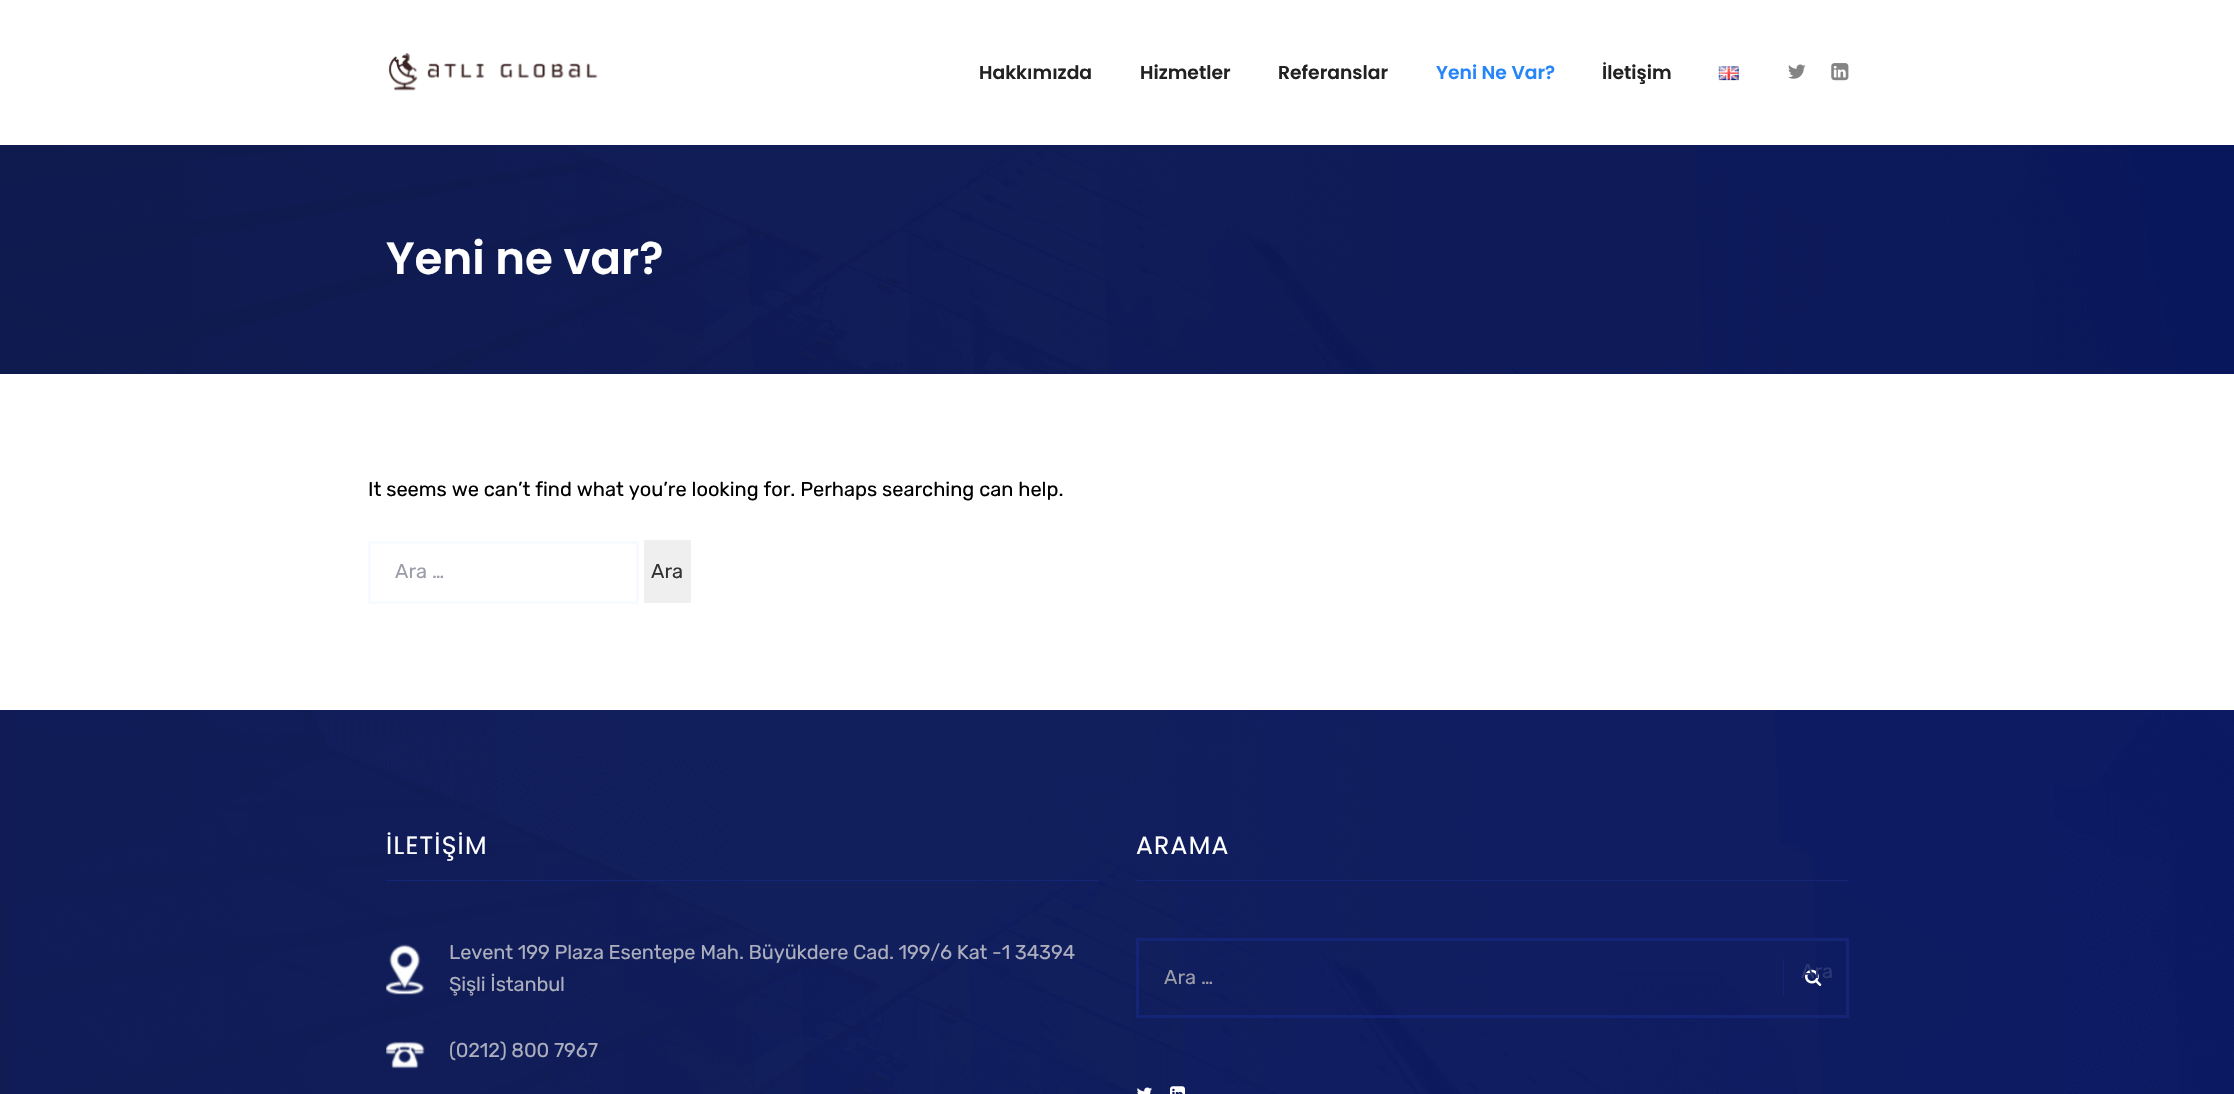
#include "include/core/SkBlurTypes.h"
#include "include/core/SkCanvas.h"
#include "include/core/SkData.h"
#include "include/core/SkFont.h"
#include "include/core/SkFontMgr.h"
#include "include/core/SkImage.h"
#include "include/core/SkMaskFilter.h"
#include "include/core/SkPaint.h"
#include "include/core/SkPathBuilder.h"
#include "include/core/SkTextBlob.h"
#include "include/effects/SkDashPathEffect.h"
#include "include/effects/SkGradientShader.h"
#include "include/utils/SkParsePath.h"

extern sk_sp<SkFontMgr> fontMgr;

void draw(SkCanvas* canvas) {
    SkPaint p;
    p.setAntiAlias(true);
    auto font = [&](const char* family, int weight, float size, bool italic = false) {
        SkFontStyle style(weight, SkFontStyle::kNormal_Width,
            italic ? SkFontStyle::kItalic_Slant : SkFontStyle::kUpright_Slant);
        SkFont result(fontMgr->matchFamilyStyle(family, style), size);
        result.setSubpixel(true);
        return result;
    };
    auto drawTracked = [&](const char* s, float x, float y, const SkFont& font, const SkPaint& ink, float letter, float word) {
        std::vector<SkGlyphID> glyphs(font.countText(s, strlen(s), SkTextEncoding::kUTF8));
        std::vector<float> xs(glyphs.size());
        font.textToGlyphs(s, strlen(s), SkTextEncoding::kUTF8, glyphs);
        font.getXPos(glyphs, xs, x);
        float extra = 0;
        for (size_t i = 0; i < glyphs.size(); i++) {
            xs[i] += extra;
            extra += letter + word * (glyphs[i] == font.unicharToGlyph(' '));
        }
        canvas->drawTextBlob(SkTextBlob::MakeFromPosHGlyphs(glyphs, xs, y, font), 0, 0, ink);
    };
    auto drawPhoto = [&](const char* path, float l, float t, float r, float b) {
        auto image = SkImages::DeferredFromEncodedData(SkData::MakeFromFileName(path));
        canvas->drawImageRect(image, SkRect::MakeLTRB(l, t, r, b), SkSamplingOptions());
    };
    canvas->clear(0xFFFFFFFF);
    drawPhoto("media/1.png", 388, 53, 598, 91);
    auto font1 = font("Poppins", 600, 18.75f);
    p.setColor(0xFF222222);
    {
        const struct { const char* s; float x, y; } items[] = {
            {"Hakkımızda", 979, 79},
            {"Hizmetler", 1140, 79},
            {"Referanslar", 1278, 79},
        };
        for (auto [s, x, y] : items) {
            canvas->drawString(s, x, y, font1, p);
        }
    }
    p.setColor(0xFF2685F9);
    canvas->drawString("Yeni Ne Var?", 1436, 79, font1, p);
    p.setColor(0xFF222222);
    canvas->drawString("İletişim", 1602, 79, font1, p);
    drawPhoto("media/2.png", 1718, 66, 1739, 81);
    drawPhoto("media/3.png", 1788, 64, 1806, 79);
    drawPhoto("media/4.png", 1831, 63, 1849, 81);
    drawPhoto("media/5.png", 0, 145, 2234, 374);
    auto font2 = font("Poppins", 600, 45);
    p.setColor(0xFFFFFFFF);
    canvas->drawString("Yeni ne var?", 386, 274, font2, p);
    auto font3 = font("Rubik", 300, 20);
    p.setColor(0xFF000000);
    canvas->drawString("It seems we can’t find what you’re looking for. Perhaps searching can help.", 368, 496, font3, p);
    p.setStyle(SkPaint::kStroke_Style);
    p.setStrokeWidth(3);
    p.setColor(0xFFF7FAFF);
    canvas->drawRect(SkRect::MakeLTRB(369.5f, 542.5f, 637.5f, 602.5f), p);
    p.setStyle(SkPaint::kFill_Style);
    p.setColor(0xFF9B9EA8);
    canvas->drawString("Ara …", 395, 578, font3, p);
    p.setColor(0xFFEFEFEF);
    canvas->drawRect(SkRect::MakeLTRB(644, 540, 691, 603), p);
    p.setColor(0xFF333333);
    canvas->drawString("Ara", 651, 578, font3, p);
    p.setColor(0xFF111C55);
    canvas->drawRect(SkRect::MakeLTRB(0, 710, 6, 1094), p);
    drawPhoto("media/6.png", 6, 710, 2234, 1094);
    p.setColor(0xFF142476);
    canvas->drawRect(SkRect::MakeLTRB(386, 880, 1099, 881), p);
    auto font4 = font("Poppins", 400, 25);
    p.setColor(0xFFFFFFFF);
    drawTracked("İLETİŞİM", 386, 854, font4, p, 1.25f, 0);
    drawPhoto("media/7.png", 386, 944, 425, 995);
    p.setColor(0xFFACAEBD);
    drawTracked("Levent 199 Plaza Esentepe Mah. Büyükdere Cad. 199/6 Kat -1 34394", 449, 959, font3, p, -0.12f, 0);
    drawTracked("Şişli İstanbul", 449, 991, font3, p, -0.12f, 0);
    drawPhoto("media/8.png", 386, 1041, 425, 1069);
    drawTracked("(0212) 800 7967", 449, 1057, font3, p, -0.12f, 0);
    p.setColor(0xFF142476);
    canvas->drawRect(SkRect::MakeLTRB(1136, 880, 1849, 881), p);
    p.setColor(0xFFFFFFFF);
    drawTracked("ARAMA", 1136, 854, font4, p, 1.25f, 0);
    p.setStyle(SkPaint::kStroke_Style);
    p.setColor(0xFF142476);
    canvas->drawRect(SkRect::MakeLTRB(1137.5f, 939.5f, 1847.5f, 1016.5f), p);
    p.setStyle(SkPaint::kFill_Style);
    canvas->drawRect(SkRect::MakeLTRB(1783, 959, 1784, 996), p);
    drawPhoto("media/9.png", 1805, 969, 1822, 986);
    p.setColor(0xFF2D3874);
    canvas->drawString("Ara", 1801, 978, font3, p);
    p.setColor(0xFF9B9EA8);
    canvas->drawString("Ara …", 1164, 984, font3, p);
    drawPhoto("media/10.png", 1137, 1087, 1152, 1094);
    drawPhoto("media/11.png", 1170, 1086, 1185, 1094);
}
